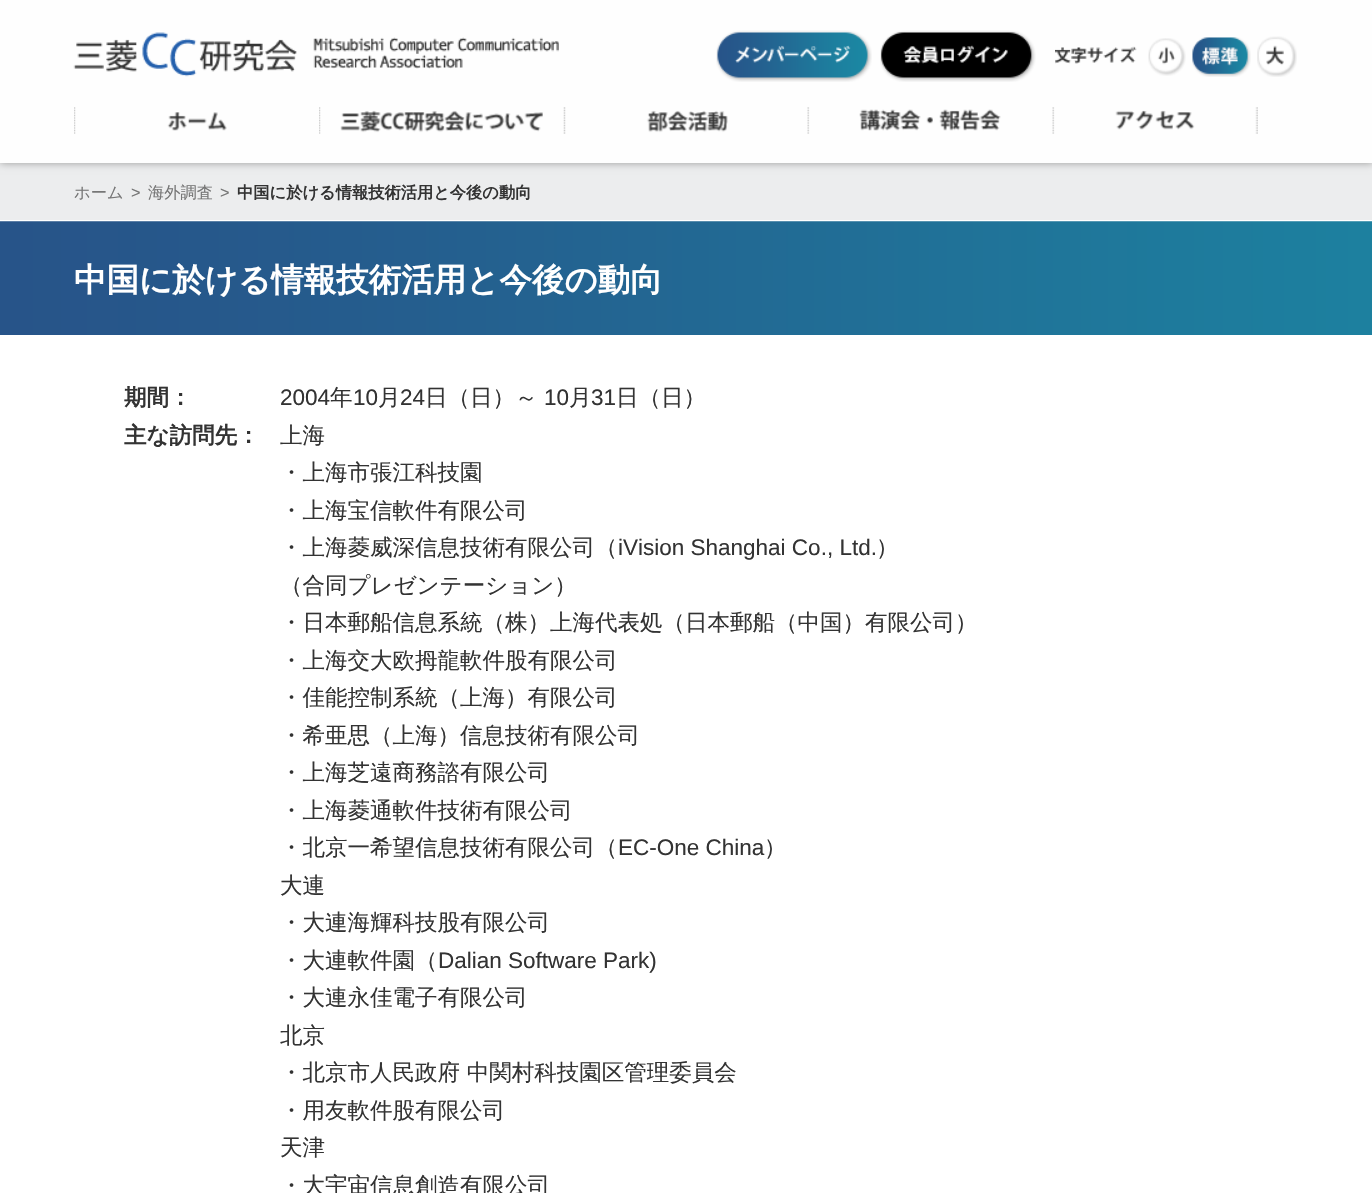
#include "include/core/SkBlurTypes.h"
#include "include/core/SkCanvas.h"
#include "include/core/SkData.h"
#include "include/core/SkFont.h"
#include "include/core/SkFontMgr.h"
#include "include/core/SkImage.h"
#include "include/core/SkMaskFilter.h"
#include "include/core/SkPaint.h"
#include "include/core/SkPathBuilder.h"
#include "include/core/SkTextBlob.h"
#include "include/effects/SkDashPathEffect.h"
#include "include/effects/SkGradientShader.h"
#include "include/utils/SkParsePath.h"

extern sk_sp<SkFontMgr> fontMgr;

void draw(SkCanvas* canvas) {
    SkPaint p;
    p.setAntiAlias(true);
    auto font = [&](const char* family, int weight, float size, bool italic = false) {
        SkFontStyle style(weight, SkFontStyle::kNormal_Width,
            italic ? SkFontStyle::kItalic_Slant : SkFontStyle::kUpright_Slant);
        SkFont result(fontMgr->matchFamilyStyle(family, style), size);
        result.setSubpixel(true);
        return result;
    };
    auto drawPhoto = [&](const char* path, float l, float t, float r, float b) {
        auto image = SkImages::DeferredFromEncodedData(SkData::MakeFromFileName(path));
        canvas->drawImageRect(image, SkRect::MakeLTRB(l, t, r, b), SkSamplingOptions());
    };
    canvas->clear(0xFFFFFFFF);
    p.setColor(0xFFECEDEE);
    canvas->drawRect(SkRect::MakeLTRB(0, 0, 1372, 220), p);
    canvas->save();
    canvas->clipPath(SkPathBuilder(SkPathFillType::kEvenOdd).moveTo(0, 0).lineTo(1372, 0).lineTo(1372, 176).lineTo(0, 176).close().moveTo(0, 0).lineTo(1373, 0).lineTo(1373, 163).lineTo(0, 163).close().detach(), true);
    p.setColor(0xFF999999);
    p.setMaskFilter(SkMaskFilter::MakeBlur(kNormal_SkBlurStyle, 4));
    canvas->drawRect(SkRect::MakeLTRB(0, 0, 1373, 163), p);
    p.setMaskFilter(nullptr);
    canvas->restore();
    p.setColor(0xE6FFFFFF);
    canvas->drawRect(SkRect::MakeLTRB(0, 0, 1372, 163), p);
    drawPhoto("media/1.png", 73, 32, 559, 77);
    drawPhoto("media/2.png", 716, 30, 872, 82);
    drawPhoto("media/3.png", 880, 30, 1036, 82);
    drawPhoto("media/4.png", 1055, 46, 1137, 64);
    drawPhoto("media/5.png", 1148, 38, 1186, 76);
    drawPhoto("media/6.png", 1192, 37, 1251, 77);
    drawPhoto("media/7.png", 1257, 36, 1297, 77);
    drawPhoto("media/8.png", 74, 107, 227, 134);
    drawPhoto("media/9.png", 319, 107, 543, 134);
    drawPhoto("media/10.png", 563, 107, 728, 134);
    drawPhoto("media/11.png", 807, 107, 1001, 134);
    drawPhoto("media/12.png", 1052, 107, 1258, 134);
    auto font1 = font("WenQuanYi Zen Hei", 500, 16.25f);
    p.setColor(0xFF767676);
    canvas->drawString("ホーム", 74, 198, font1, p);
    auto font2 = font("Liberation Sans", 400, 16.25f);
    canvas->drawString(">", 131, 198, font2, p);
    canvas->drawString("海外調査", 148, 198, font1, p);
    canvas->drawString(">", 220, 198, font2, p);
    auto font3 = font("WenQuanYi Zen Hei", 700, 16.25f);
    p.setColor(0xFF333333);
    canvas->drawString("中国に於ける情報技術活用と今後の動向", 237, 198, font3, p);
    drawPhoto("media/13.png", 0, 221, 1372, 335);
    auto font4 = font("WenQuanYi Zen Hei", 700, 32.5f);
    p.setColor(0xFFFFFFFF);
    canvas->drawString("中国に於ける情報技術活用と今後の動向", 74, 291, font4, p);
    auto font5 = font("WenQuanYi Zen Hei", 700, 22.5f);
    p.setColor(0xFF333333);
    canvas->drawString("期間：", 124, 405, font5, p);
    auto font6 = font("Liberation Sans", 400, 22.5f);
    canvas->drawString("2004", 280, 405, font6, p);
    auto font7 = font("WenQuanYi Zen Hei", 500, 22.5f);
    canvas->drawString("年", 330, 405, font7, p);
    canvas->drawString("10", 353, 405, font6, p);
    canvas->drawString("月", 378, 405, font7, p);
    canvas->drawString("24", 400, 405, font6, p);
    canvas->drawString("日（日）～", 425, 405, font7, p);
    canvas->drawString("10", 544, 405, font6, p);
    canvas->drawString("月", 569, 405, font7, p);
    canvas->drawString("31", 591, 405, font6, p);
    canvas->drawString("日（日）", 616, 405, font7, p);
    canvas->drawString("主な訪問先：", 124, 443, font5, p);
    {
        const struct { const char* s; float x, y; } items[] = {
            {"上海", 280, 443},
            {"・上海市張江科技園", 280, 480},
            {"・上海宝信軟件有限公司", 280, 518},
            {"・上海菱威深信息技術有限公司（", 280, 555},
        };
        for (auto [s, x, y] : items) {
            canvas->drawString(s, x, y, font7, p);
        }
    }
    canvas->drawString("iVision Shanghai Co., Ltd.", 618, 555, font6, p);
    {
        const struct { const char* s; float x, y; } items[] = {
            {"）", 876, 555},
            {"（合同プレゼンテーション）", 280, 593},
            {"・日本郵船信息系統（株）上海代表処（日本郵船（中国）有限公司）", 280, 630},
            {"・上海交大欧拇龍軟件股有限公司", 280, 668},
            {"・佳能控制系統（上海）有限公司", 280, 705},
            {"・希亜思（上海）信息技術有限公司", 280, 743},
            {"・上海芝遠商務諮有限公司", 280, 780},
            {"・上海菱通軟件技術有限公司", 280, 818},
            {"・北京一希望信息技術有限公司（", 280, 855},
        };
        for (auto [s, x, y] : items) {
            canvas->drawString(s, x, y, font7, p);
        }
    }
    canvas->drawString("EC-One China", 618, 855, font6, p);
    {
        const struct { const char* s; float x, y; } items[] = {
            {"）", 764, 855},
            {"大連", 280, 893},
            {"・大連海輝科技股有限公司", 280, 930},
            {"・大連軟件園（", 280, 968},
        };
        for (auto [s, x, y] : items) {
            canvas->drawString(s, x, y, font7, p);
        }
    }
    canvas->drawString("Dalian Software Park)", 438, 968, font6, p);
    {
        const struct { const char* s; float x, y; } items[] = {
            {"・大連永佳電子有限公司", 280, 1005},
            {"北京", 280, 1043},
            {"・北京市人民政府 中関村科技園区管理委員会", 280, 1080},
            {"・用友軟件股有限公司", 280, 1118},
            {"天津", 280, 1155},
            {"・大宇宙信息創造有限公司", 280, 1193},
        };
        for (auto [s, x, y] : items) {
            canvas->drawString(s, x, y, font7, p);
        }
    }
}
